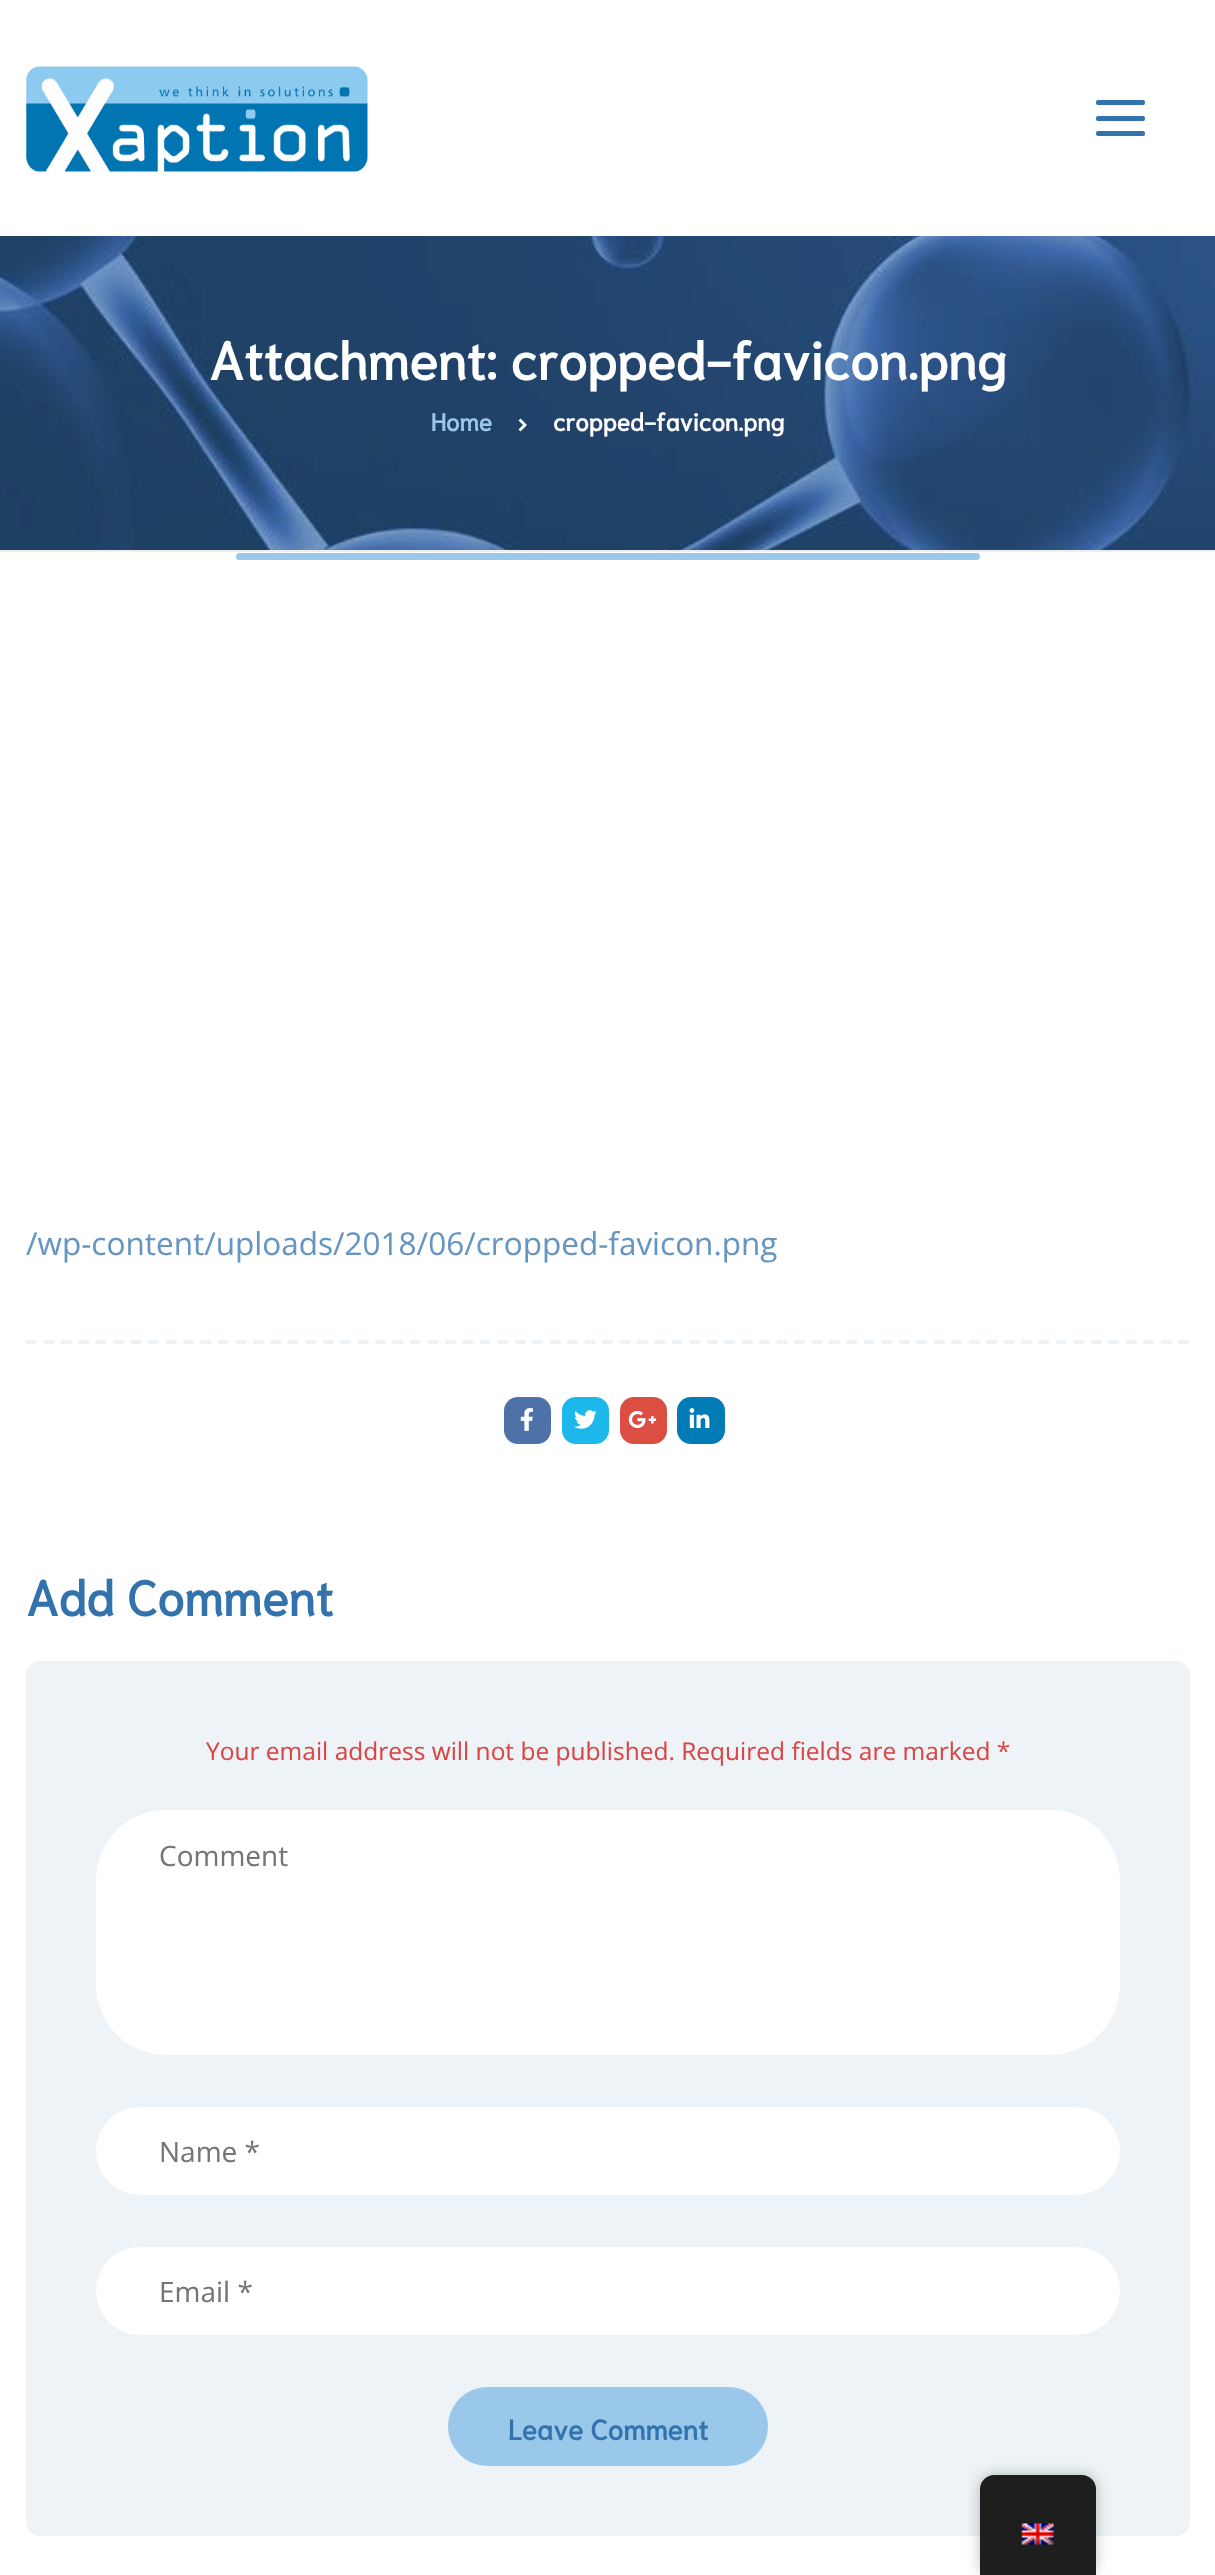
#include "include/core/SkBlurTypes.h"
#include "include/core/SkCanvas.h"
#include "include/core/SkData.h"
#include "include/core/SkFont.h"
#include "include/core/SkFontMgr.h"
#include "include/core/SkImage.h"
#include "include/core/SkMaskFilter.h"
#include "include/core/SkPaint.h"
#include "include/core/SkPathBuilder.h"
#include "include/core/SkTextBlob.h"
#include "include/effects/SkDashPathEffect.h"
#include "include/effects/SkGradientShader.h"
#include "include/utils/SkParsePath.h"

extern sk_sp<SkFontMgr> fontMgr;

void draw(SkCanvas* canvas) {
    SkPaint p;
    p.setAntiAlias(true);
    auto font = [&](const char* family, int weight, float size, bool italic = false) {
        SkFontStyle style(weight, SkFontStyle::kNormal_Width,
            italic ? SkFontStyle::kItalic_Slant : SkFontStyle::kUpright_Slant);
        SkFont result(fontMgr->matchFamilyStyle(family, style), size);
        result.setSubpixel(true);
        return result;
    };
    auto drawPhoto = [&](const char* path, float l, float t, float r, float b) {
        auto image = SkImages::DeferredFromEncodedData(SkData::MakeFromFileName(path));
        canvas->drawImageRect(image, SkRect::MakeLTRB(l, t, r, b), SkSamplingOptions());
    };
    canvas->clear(0xFFFFFFFF);
    drawPhoto("media/1.png", 26, 66, 368, 172);
    p.setColor(0xFF3273AD);
    canvas->drawRoundRect(SkRect::MakeLTRB(1096, 100, 1145, 105), 2, 2, p);
    canvas->drawRoundRect(SkRect::MakeLTRB(1096, 116, 1145, 121), 2, 2, p);
    canvas->drawRoundRect(SkRect::MakeLTRB(1096, 131, 1145, 136), 2, 2, p);
    drawPhoto("media/2.png", 0, 236, 1215, 550);
    p.setColor(0xFFEEEEEE);
    canvas->drawRect(SkRect::MakeLTRB(0, 550, 1215, 552), p);
    auto font1 = font("Niramit", 700, 52.5f);
    p.setColor(0xFFFFFFFF);
    canvas->drawString("Attachment: cropped-favicon.png", 209, 380, font1, p);
    auto font2 = font("Niramit", 700, 24.5f);
    p.setColor(0xFF99C8EB);
    canvas->drawString("Home", 431, 431, font2, p);
    drawPhoto("media/3.png", 518, 418, 527, 432);
    p.setColor(0xFFFFFFFF);
    canvas->drawString("cropped-favicon.png", 553, 431, font2, p);
    p.setColor(0xFF99C8EB);
    canvas->drawRoundRect(SkRect::MakeLTRB(236, 553, 980, 560), 3.5f, 3.5f, p);
    p.setStyle(SkPaint::kStroke_Style);
    p.setStrokeWidth(3.5f);
    p.setColor(0xFFEBF1F7);
    p.setPathEffect(SkDashPathEffect::Make({{10.5f, 6.96f}}, 0));
    canvas->drawPath(SkPathBuilder().moveTo(26, 1342).lineTo(1190, 1342).detach(), p);
    p.setPathEffect(nullptr);
    auto font3 = font("Open Sans", 400, 31.5f);
    p.setStyle(SkPaint::kFill_Style);
    p.setColor(0xFF6596C2);
    canvas->drawString("/wp-content/uploads/2018/06/cropped-favicon.png", 26, 1255, font3, p);
    p.setColor(0xFF4E71A8);
    canvas->drawRoundRect(SkRect::MakeLTRB(504, 1397, 551, 1444), 14, 14, p);
    drawPhoto("media/4.png", 520, 1408, 533, 1431);
    p.setColor(0xFF1CB7EB);
    canvas->drawRoundRect(SkRect::MakeLTRB(562, 1397, 609, 1444), 14, 14, p);
    drawPhoto("media/5.png", 574, 1410, 597, 1429);
    p.setColor(0xFFDC4E41);
    canvas->drawRoundRect(SkRect::MakeLTRB(620, 1397, 667, 1444), 14, 14, p);
    drawPhoto("media/6.png", 628, 1410, 657, 1428);
    p.setColor(0xFF007BB6);
    canvas->drawRoundRect(SkRect::MakeLTRB(677, 1397, 725, 1444), 14, 14, p);
    drawPhoto("media/7.png", 689, 1408, 710, 1428);
    auto font4 = font("Niramit", 700, 49);
    p.setColor(0xFF3273AD);
    canvas->drawString("Add Comment", 26, 1616, font4, p);
    p.setColor(0xFFEDF3F6);
    canvas->drawRoundRect(SkRect::MakeLTRB(26, 1661, 1190, 2536), 14, 14, p);
    auto font5 = font("Open Sans", 400, 24.5f);
    p.setColor(0xFFDC4545);
    canvas->drawString("Your email address will not be published. Required fields are marked *", 206, 1760, font5, p);
    p.setColor(0xFFFFFFFF);
    canvas->drawRoundRect(SkRect::MakeLTRB(96, 1810, 1120, 2055), 70, 70, p);
    auto font6 = font("Open Sans", 400, 28);
    p.setColor(0xFF757575);
    canvas->drawString("Comment", 159, 1866, font6, p);
    p.setColor(0xFFFFFFFF);
    canvas->drawRoundRect(SkRect::MakeLTRB(96, 2107, 1120, 2195), 44, 44, p);
    p.setColor(0xFF757575);
    canvas->drawString("Name *", 159, 2162, font6, p);
    p.setColor(0xFFFFFFFF);
    canvas->drawRoundRect(SkRect::MakeLTRB(96, 2247, 1120, 2335), 44, 44, p);
    p.setColor(0xFF757575);
    canvas->drawString("Email *", 159, 2302, font6, p);
    p.setColor(0xFF99C8EB);
    canvas->drawRoundRect(SkRect::MakeLTRB(448, 2387, 768, 2466), 39.5f, 39.5f, p);
    auto font7 = font("Niramit", 700, 28);
    p.setColor(0xFF3273AD);
    canvas->drawString("Leave Comment", 508, 2440, font7, p);
    p.setColor(0x40000000);
    p.setMaskFilter(SkMaskFilter::MakeBlur(kNormal_SkBlurStyle, 7));
    canvas->drawRoundRect(SkRect::MakeLTRB(980, 2475, 1096, 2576), 14, 14, p);
    p.setMaskFilter(nullptr);
    p.setColor(0xFF1E1E1E);
    canvas->drawPath(SkPathBuilder().moveTo(994, 2475).lineTo(1082, 2475).cubicTo(1089.5f, 2475, 1096, 2481.5f, 1096, 2489).lineTo(1096, 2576).lineTo(980, 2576).lineTo(980, 2489).cubicTo(980, 2481.5f, 986.5f, 2475, 994, 2475).close().detach(), p);
    drawPhoto("media/8.png", 1021, 2523, 1054, 2545);
}
